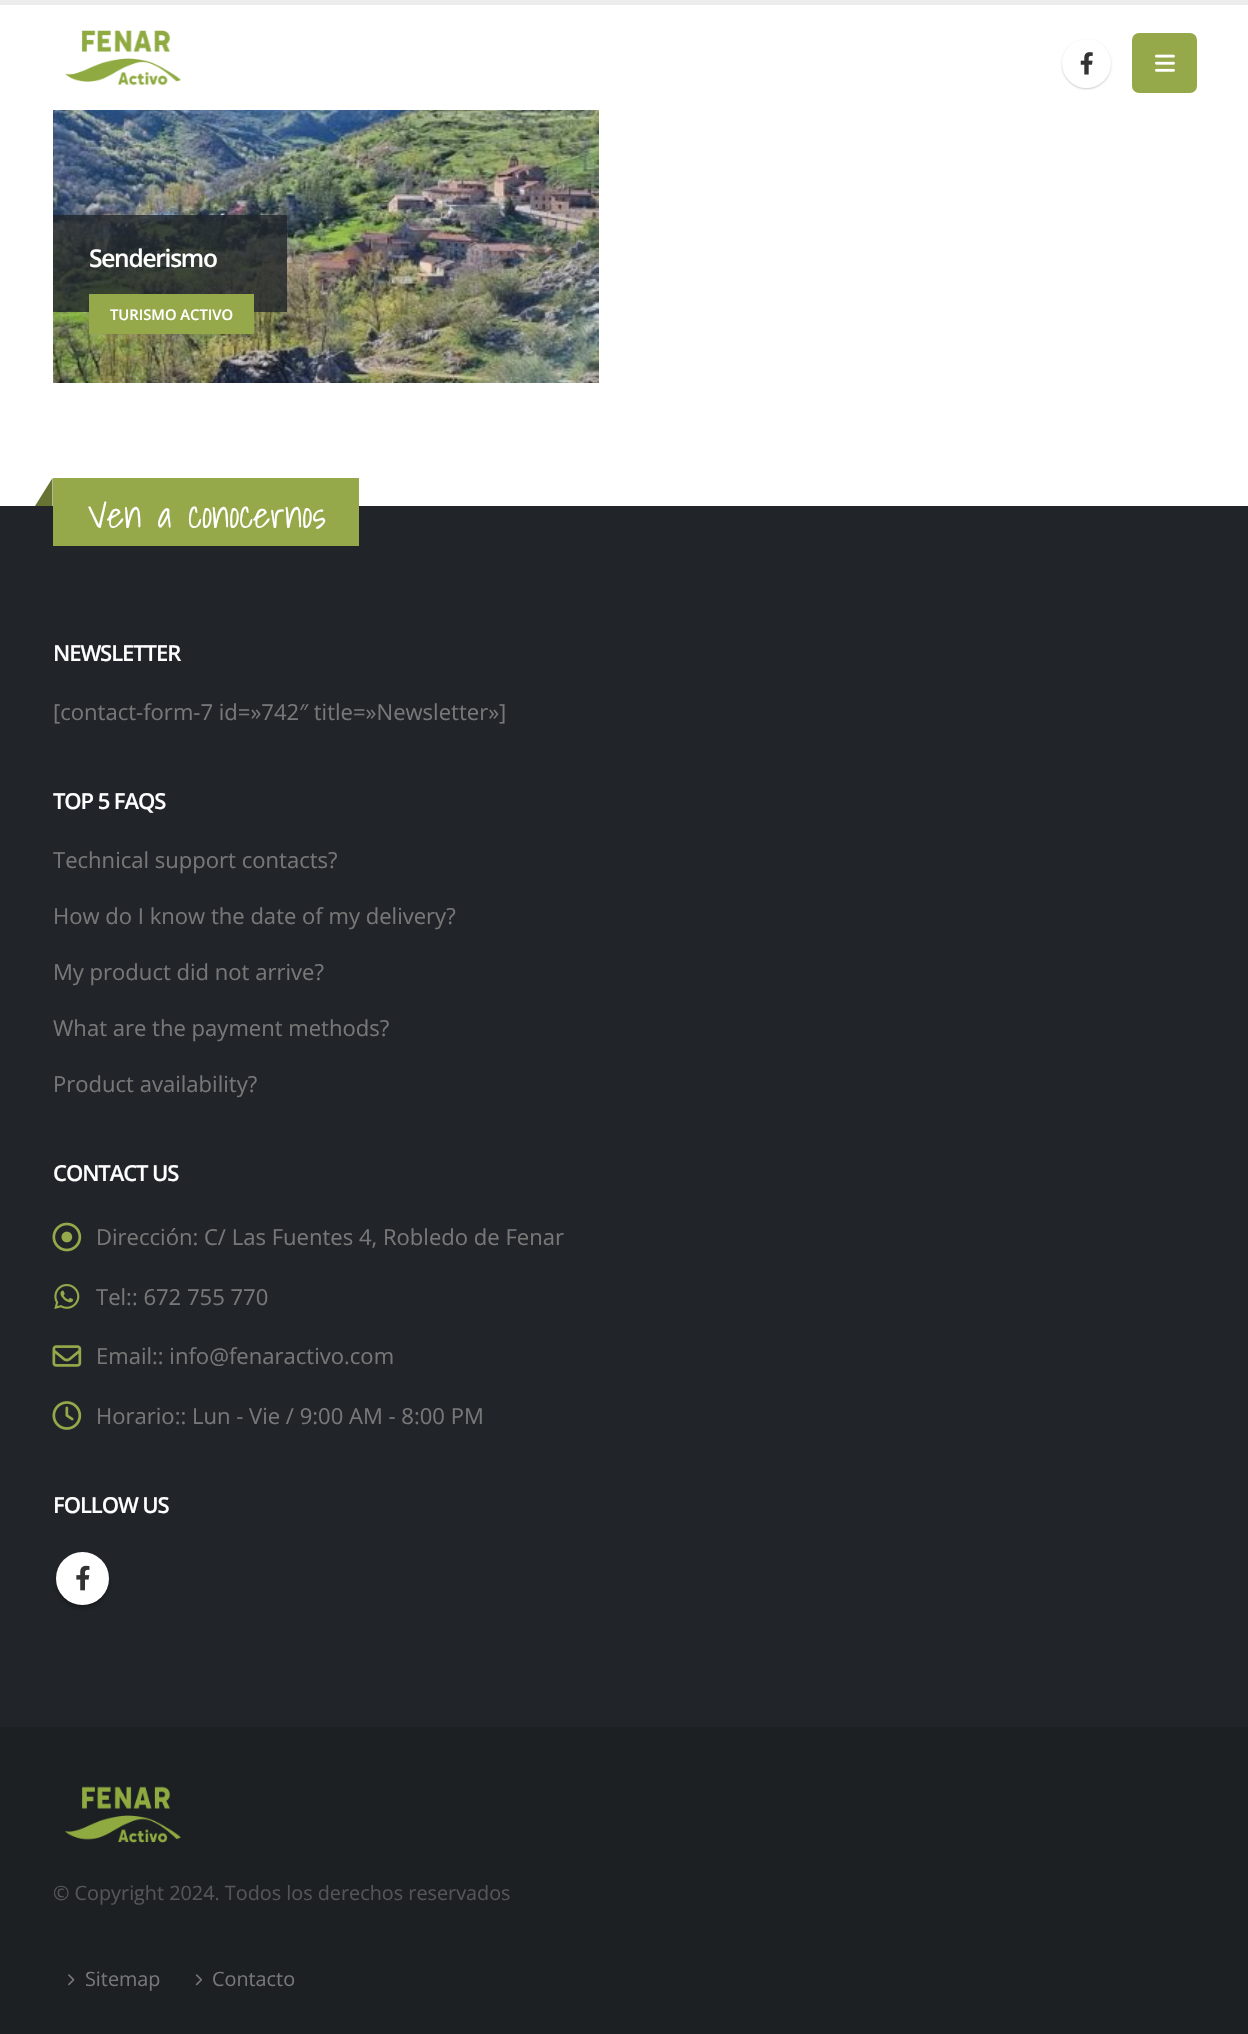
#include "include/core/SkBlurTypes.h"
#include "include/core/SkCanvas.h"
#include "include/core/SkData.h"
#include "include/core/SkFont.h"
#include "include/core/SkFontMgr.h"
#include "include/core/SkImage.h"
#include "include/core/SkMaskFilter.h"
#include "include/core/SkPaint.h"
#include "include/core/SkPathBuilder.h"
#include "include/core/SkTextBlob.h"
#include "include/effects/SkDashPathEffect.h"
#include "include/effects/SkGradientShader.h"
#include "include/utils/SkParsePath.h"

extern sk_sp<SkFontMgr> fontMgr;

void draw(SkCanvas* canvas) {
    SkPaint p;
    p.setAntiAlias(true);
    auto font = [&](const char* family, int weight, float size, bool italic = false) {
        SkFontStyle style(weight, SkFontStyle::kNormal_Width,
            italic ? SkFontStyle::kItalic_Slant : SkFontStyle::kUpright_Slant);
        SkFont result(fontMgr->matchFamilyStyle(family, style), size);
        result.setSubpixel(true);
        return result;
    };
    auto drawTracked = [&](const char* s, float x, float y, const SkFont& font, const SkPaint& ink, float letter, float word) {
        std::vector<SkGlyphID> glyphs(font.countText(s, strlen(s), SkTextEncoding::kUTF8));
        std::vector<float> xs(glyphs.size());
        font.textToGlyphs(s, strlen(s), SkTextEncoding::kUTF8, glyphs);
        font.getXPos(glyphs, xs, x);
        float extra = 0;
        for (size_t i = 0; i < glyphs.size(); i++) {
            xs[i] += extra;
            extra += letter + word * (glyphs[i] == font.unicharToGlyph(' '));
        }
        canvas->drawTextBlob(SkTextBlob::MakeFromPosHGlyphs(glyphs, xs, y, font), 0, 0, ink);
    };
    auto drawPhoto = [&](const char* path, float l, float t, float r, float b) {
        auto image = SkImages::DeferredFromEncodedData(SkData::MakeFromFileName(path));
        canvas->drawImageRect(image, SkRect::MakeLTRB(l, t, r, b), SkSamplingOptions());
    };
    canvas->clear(0xFFFFFFFF);
    p.setColor(0xFFEDEDED);
    canvas->drawRect(SkRect::MakeLTRB(0, 0, 1248, 5), p);
    drawPhoto("media/1.png", 65, 30, 181, 86);
    p.setColor(0x33000000);
    p.setMaskFilter(SkMaskFilter::MakeBlur(kNormal_SkBlurStyle, 1));
    canvas->drawRoundRect(SkRect::MakeLTRB(1062, 40, 1111, 89), 24.5f, 24.5f, p);
    p.setMaskFilter(nullptr);
    p.setColor(0xFFFFFFFF);
    canvas->drawCircle(1086.5f, 63.5f, 24.5f, p);
    drawPhoto("media/2.png", 1080, 52, 1093, 75);
    p.setColor(0xFF95A84A);
    canvas->drawRoundRect(SkRect::MakeLTRB(1132, 33, 1197, 93), 7, 7, p);
    drawPhoto("media/3.png", 1155, 54, 1175, 72);
    drawPhoto("media/4.png", 53, 110, 599, 383);
    p.setColor(0xCC212529);
    canvas->drawRect(SkRect::MakeLTRB(53, 215, 287, 312), p);
    auto font1 = font("Open Sans", 600, 24.5f);
    p.setColor(0xFFFFFFFF);
    drawTracked("Senderismo", 89, 267, font1, p, -1.25f, 0);
    p.setColor(0xFF95A84A);
    canvas->drawRect(SkRect::MakeLTRB(89, 294, 254, 334), p);
    auto font2 = font("Open Sans", 600, 14.75f);
    p.setColor(0xFFFFFFFF);
    canvas->drawString("TURISMO ACTIVO", 110, 320, font2, p);
    p.setColor(0xFF212529);
    canvas->drawRect(SkRect::MakeLTRB(0, 506, 1248, 1727), p);
    p.setColor(0xFF95A84A);
    canvas->drawRect(SkRect::MakeLTRB(53, 478, 359, 546), p);
    p.setColor(0xFF667333);
    canvas->drawPath(SkPathBuilder().moveTo(52.5f, 478).lineTo(52.5f, 506).lineTo(35, 506).close().detach(), p);
    auto font3 = font("Shadows Into Light", 300, 36.5f);
    p.setColor(0xFFFFFFFF);
    canvas->drawString("Ven a conocernos", 88, 528, font3, p);
    auto font4 = font("Open Sans", 600, 22.05f);
    drawTracked("NEWSLETTER", 53, 661, font4, p, -1.1f, 0);
    auto font5 = font("Open Sans", 400, 22.05f);
    p.setColor(0xFF777777);
    canvas->drawString("[contact-form-7 id=»742″ title=»Newsletter»]", 53, 720, font5, p);
    p.setColor(0xFFFFFFFF);
    drawTracked("TOP 5 FAQS", 53, 809, font4, p, -1.1f, 0);
    p.setColor(0xFF777777);
    {
        const struct { const char* s; float x, y; } items[] = {
            {"Technical support contacts?", 53, 868},
            {"How do I know the date of my delivery?", 53, 924},
            {"My product did not arrive?", 53, 980},
            {"What are the payment methods?", 53, 1036},
            {"Product availability?", 53, 1092},
        };
        for (auto [s, x, y] : items) {
            canvas->drawString(s, x, y, font5, p);
        }
    }
    p.setColor(0xFFFFFFFF);
    drawTracked("CONTACT US", 53, 1181, font4, p, -1.1f, 0);
    drawPhoto("media/5.png", 52, 1222, 82, 1252);
    p.setColor(0xFF777777);
    canvas->drawString("Dirección: C/ Las Fuentes 4, Robledo de Fenar", 96, 1245, font5, p);
    drawPhoto("media/6.png", 54, 1284, 80, 1309);
    canvas->drawString("Tel:: 672 755 770", 96, 1305, font5, p);
    drawPhoto("media/7.png", 52, 1345, 82, 1367);
    canvas->drawString("Email:: info@fenaractivo.com", 96, 1364, font5, p);
    drawPhoto("media/8.png", 52, 1401, 82, 1430);
    canvas->drawString("Horario:: Lun - Vie / 9:00 AM - 8:00 PM", 96, 1424, font5, p);
    p.setColor(0xFFFFFFFF);
    drawTracked("FOLLOW US", 53, 1513, font4, p, -1.1f, 0);
    p.setColor(0x4D000000);
    p.setMaskFilter(SkMaskFilter::MakeBlur(kNormal_SkBlurStyle, 2));
    canvas->drawRoundRect(SkRect::MakeLTRB(56, 1556, 109, 1608), 26, 26, p);
    p.setMaskFilter(nullptr);
    p.setColor(0xFFFFFFFF);
    canvas->drawCircle(82.5f, 1578.5f, 26.5f, p);
    drawPhoto("media/9.png", 76, 1565, 90, 1591);
    p.setColor(0xFF1C2023);
    canvas->drawRect(SkRect::MakeLTRB(0, 1727, 1248, 2034), p);
    drawPhoto("media/10.png", 65, 1786, 181, 1843);
    auto font6 = font("Open Sans", 400, 19.8f);
    p.setColor(0xFF555555);
    canvas->drawString("© Copyright 2024. Todos los derechos reservados", 53, 1900, font6, p);
    drawPhoto("media/11.png", 68, 1974, 75, 1986);
    p.setColor(0xFF777777);
    canvas->drawString("Sitemap", 85, 1986, font6, p);
    drawPhoto("media/12.png", 195, 1974, 202, 1986);
    canvas->drawString("Contacto", 212, 1986, font6, p);
}
